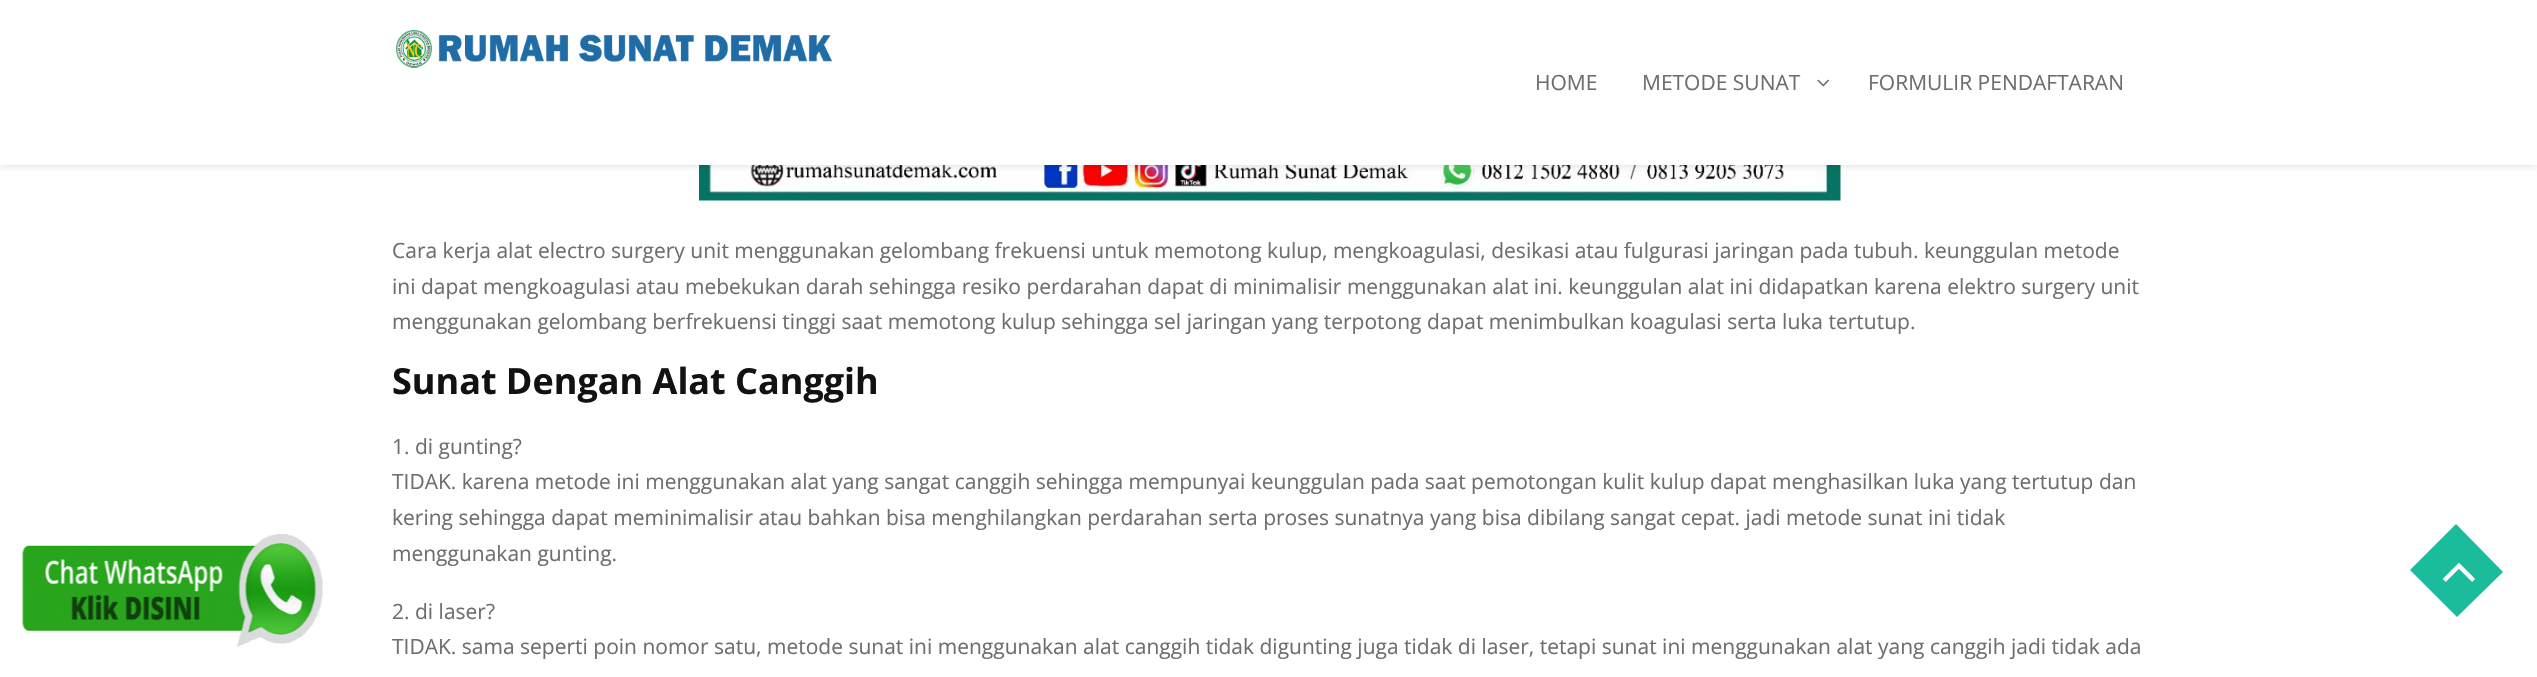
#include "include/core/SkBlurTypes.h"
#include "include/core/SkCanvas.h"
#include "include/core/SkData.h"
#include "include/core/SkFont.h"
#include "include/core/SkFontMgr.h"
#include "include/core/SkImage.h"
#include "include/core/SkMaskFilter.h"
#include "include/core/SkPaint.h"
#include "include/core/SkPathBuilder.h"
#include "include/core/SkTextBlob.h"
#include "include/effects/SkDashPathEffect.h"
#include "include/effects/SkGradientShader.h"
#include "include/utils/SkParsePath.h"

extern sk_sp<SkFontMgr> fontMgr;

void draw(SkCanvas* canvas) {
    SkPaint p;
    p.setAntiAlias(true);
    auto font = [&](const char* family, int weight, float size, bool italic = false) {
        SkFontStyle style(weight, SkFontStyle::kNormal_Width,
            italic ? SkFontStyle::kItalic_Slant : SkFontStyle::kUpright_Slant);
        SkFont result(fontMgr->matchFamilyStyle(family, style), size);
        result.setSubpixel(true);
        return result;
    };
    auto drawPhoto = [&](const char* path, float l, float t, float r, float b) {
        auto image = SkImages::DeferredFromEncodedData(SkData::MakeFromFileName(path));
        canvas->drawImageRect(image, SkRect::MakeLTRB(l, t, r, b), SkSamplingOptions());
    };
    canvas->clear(0xFFFFFFFF);
    drawPhoto("media/1.png", 22, 534, 323, 647);
    drawPhoto("media/4.png", 699, 165, 1841, 201);
    p.setColor(0x26000000);
    p.setMaskFilter(SkMaskFilter::MakeBlur(kNormal_SkBlurStyle, 4));
    canvas->drawRect(SkRect::MakeLTRB(0, 0, 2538, 165), p);
    p.setMaskFilter(nullptr);
    p.setColor(0xFFFFFFFF);
    canvas->drawRect(SkRect::MakeLTRB(0, 0, 2537, 165), p);
    drawPhoto("media/2.png", 396, 30, 833, 68);
    auto font1 = font("Open Sans", 400, 21);
    p.setColor(0xFF6E6E6E);
    canvas->drawString("HOME", 1535, 90, font1, p);
    canvas->drawString("METODE SUNAT", 1642, 90, font1, p);
    drawPhoto("media/3.png", 1817, 79, 1829, 87);
    {
        const struct { const char* s; float x, y; } items[] = {
            {"FORMULIR PENDAFTARAN", 1868, 90},
            {"Cara kerja alat electro surgery unit menggunakan gelombang frekuensi untuk memotong kulup, mengkoagulasi, desikasi atau fulgurasi jaringan pada tubuh. keunggulan metode", 392, 258},
            {"ini dapat mengkoagulasi atau mebekukan darah sehingga resiko perdarahan dapat di minimalisir menggunakan alat ini. keunggulan alat ini didapatkan karena elektro surgery unit", 392, 294},
            {"menggunakan gelombang berfrekuensi tinggi saat memotong kulup sehingga sel jaringan yang terpotong dapat menimbulkan koagulasi serta luka tertutup.", 392, 329},
        };
        for (auto [s, x, y] : items) {
            canvas->drawString(s, x, y, font1, p);
        }
    }
    auto font2 = font("Open Sans", 700, 36);
    p.setColor(0xFF121212);
    canvas->drawString("Sunat Dengan Alat Canggih", 392, 394, font2, p);
    p.setColor(0xFF6E6E6E);
    {
        const struct { const char* s; float x, y; } items[] = {
            {"1. di gunting?", 392, 454},
            {"TIDAK. karena metode ini menggunakan alat yang sangat canggih sehingga mempunyai keunggulan pada saat pemotongan kulit kulup dapat menghasilkan luka yang tertutup dan", 392, 489},
            {"kering sehingga dapat meminimalisir atau bahkan bisa menghilangkan perdarahan serta proses sunatnya yang bisa dibilang sangat cepat. jadi metode sunat ini tidak", 392, 525},
            {"menggunakan gunting.", 392, 561},
            {"2. di laser?", 392, 619},
            {"TIDAK. sama seperti poin nomor satu, metode sunat ini menggunakan alat canggih tidak digunting juga tidak di laser, tetapi sunat ini menggunakan alat yang canggih jadi tidak ada", 392, 654},
        };
        for (auto [s, x, y] : items) {
            canvas->drawString(s, x, y, font1, p);
        }
    }
    p.setColor(0xFF1BBC9B);
    canvas->drawPath(SkPathBuilder().moveTo(2456, 524).lineTo(2503, 572).lineTo(2457, 617).lineTo(2410, 570).close().detach(), p);
    drawPhoto("media/5.png", 2443, 563, 2475, 582);
}
